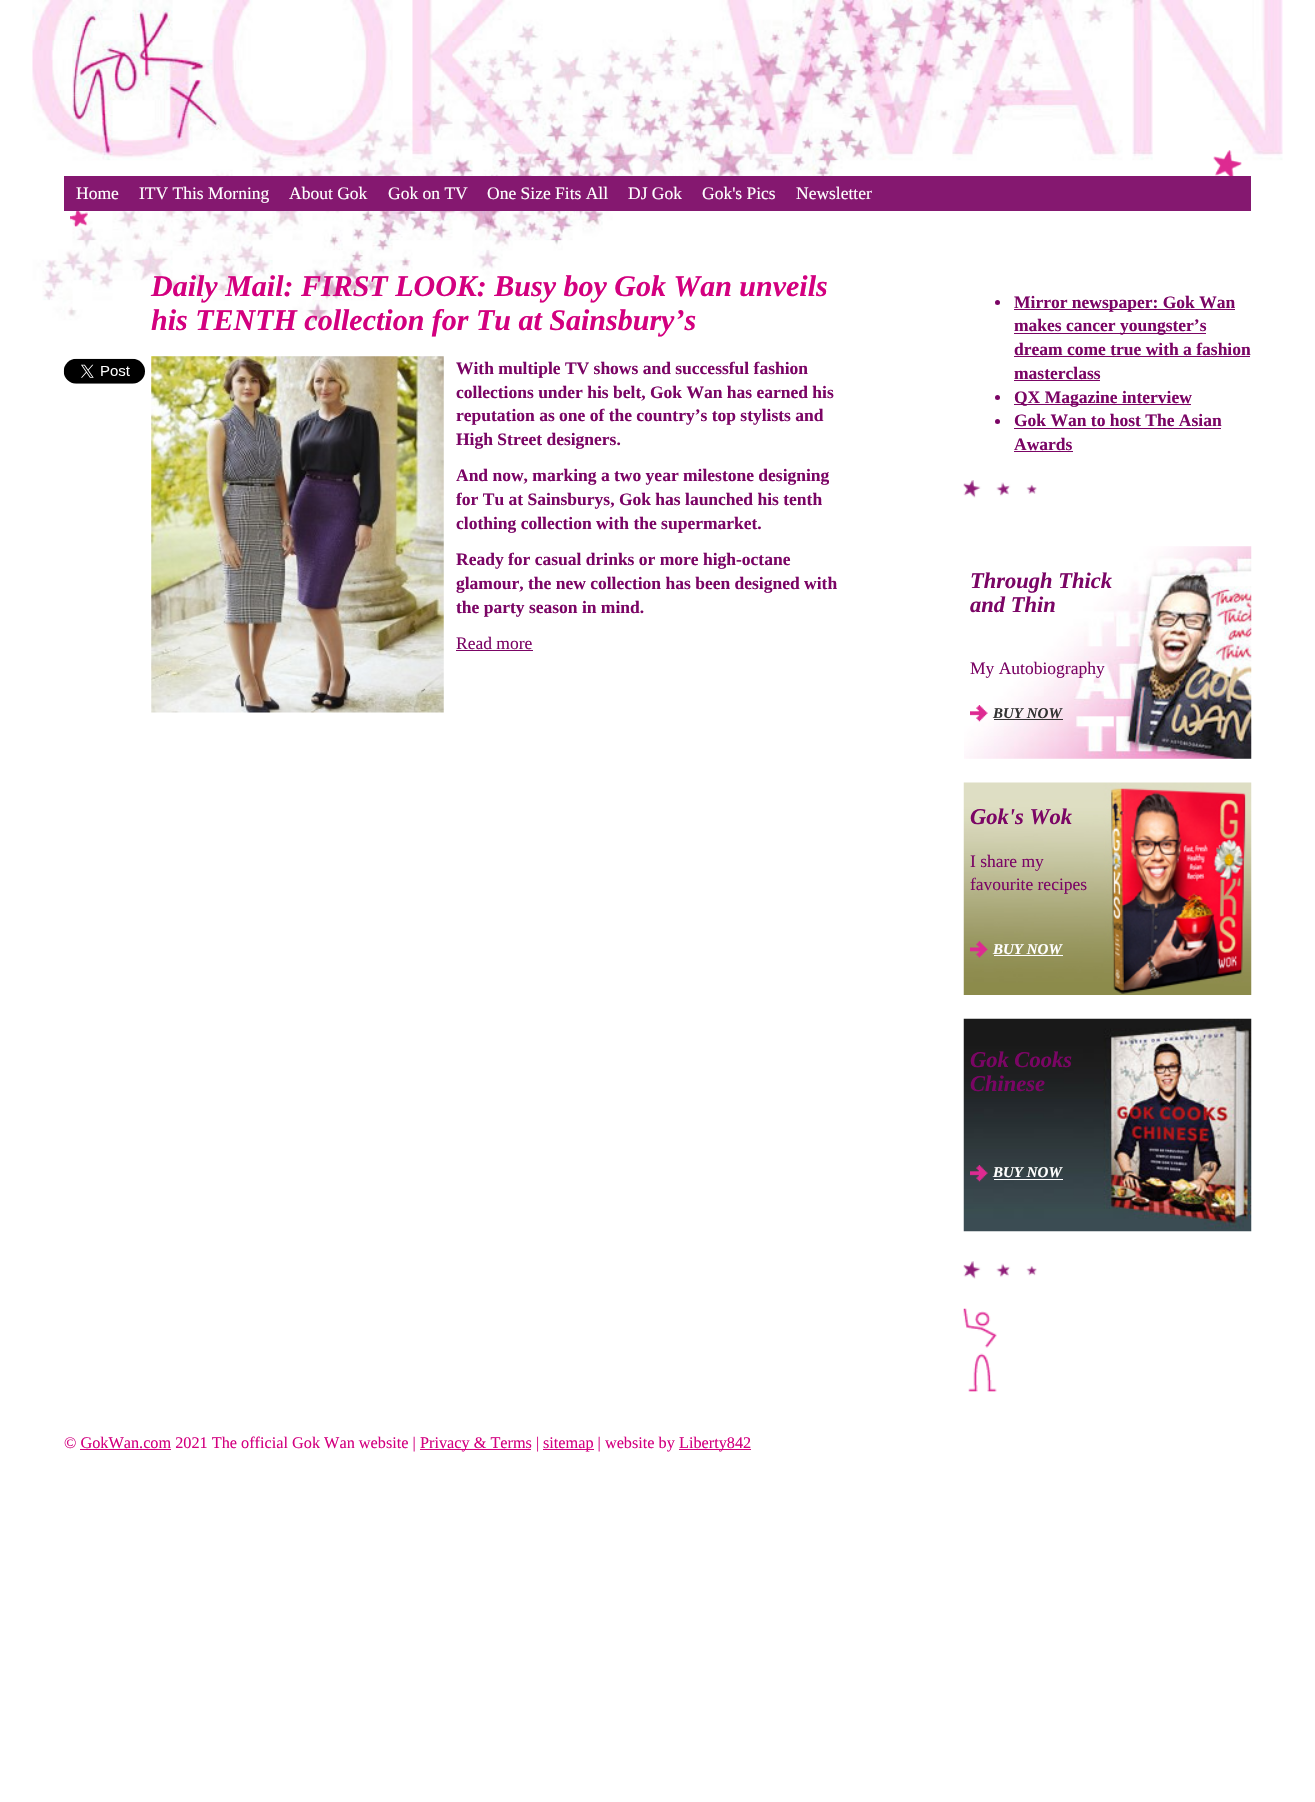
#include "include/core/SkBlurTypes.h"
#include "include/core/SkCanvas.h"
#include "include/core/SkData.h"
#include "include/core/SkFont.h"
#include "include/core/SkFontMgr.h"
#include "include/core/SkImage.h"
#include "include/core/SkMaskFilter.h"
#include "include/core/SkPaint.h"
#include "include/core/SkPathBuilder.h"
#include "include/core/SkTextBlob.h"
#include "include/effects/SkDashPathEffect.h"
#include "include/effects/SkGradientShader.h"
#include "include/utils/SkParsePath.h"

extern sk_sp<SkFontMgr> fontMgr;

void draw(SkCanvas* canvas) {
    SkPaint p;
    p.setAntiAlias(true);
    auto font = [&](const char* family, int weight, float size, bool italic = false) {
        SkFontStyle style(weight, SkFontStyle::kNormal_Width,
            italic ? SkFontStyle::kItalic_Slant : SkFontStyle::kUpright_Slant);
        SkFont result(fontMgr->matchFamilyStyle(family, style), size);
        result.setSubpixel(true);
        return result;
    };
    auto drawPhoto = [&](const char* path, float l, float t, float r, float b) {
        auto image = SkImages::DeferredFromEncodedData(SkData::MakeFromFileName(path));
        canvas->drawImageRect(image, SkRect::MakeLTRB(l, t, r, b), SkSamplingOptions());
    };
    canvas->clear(0xFFFFFFFF);
    drawPhoto("media/1.png", 32, 0, 1283, 330);
    drawPhoto("media/2.png", 1213, 150, 1242, 176);
    drawPhoto("media/3.png", 1213, 150, 1242, 176);
    p.setColor(0xFF851870);
    canvas->drawRect(SkRect::MakeLTRB(64, 176, 1251, 211), p);
    auto font1 = font("Liberation Serif", 400, 17.5f);
    p.setColor(0xFFFFFFFF);
    {
        const struct { const char* s; float x, y; } items[] = {
            {"Home", 76, 199},
            {"ITV This Morning", 139, 199},
            {"About Gok", 289, 199},
            {"Gok on TV", 388, 199},
            {"One Size Fits All", 487, 199},
            {"DJ Gok", 628, 199},
            {"Gok's Pics", 702, 199},
            {"Newsletter", 796, 199},
        };
        for (auto [s, x, y] : items) {
            canvas->drawString(s, x, y, font1, p);
        }
    }
    drawPhoto("media/4.png", 70, 211, 88, 227);
    drawPhoto("media/5.png", 70, 211, 88, 227);
    drawPhoto("media/6.png", 63, 358, 145, 384);
    auto font2 = font("Liberation Serif", 700, 30, true);
    p.setColor(0xFFD3007F);
    canvas->drawString("Daily Mail: FIRST LOOK: Busy boy Gok Wan unveils", 151, 296, font2, p);
    canvas->drawString("his TENTH collection for Tu at Sainsbury’s", 151, 330, font2, p);
    drawPhoto("media/7.png", 151, 356, 444, 713);
    auto font3 = font("Liberation Serif", 700, 17.5f);
    p.setColor(0xFF7B0565);
    {
        const struct { const char* s; float x, y; } items[] = {
            {"With multiple TV shows and successful fashion", 456, 374},
            {"collections under his belt, Gok Wan has earned his", 456, 398},
            {"reputation as one of the country’s top stylists and", 456, 421},
            {"High Street designers.", 456, 445},
            {"And now, marking a two year milestone designing", 456, 481},
            {"for Tu at Sainsburys, Gok has launched his tenth", 456, 505},
            {"clothing collection with the supermarket.", 456, 529},
            {"Ready for casual drinks or more high-octane", 456, 565},
            {"glamour, the new collection has been designed with", 456, 589},
            {"the party season in mind.", 456, 613},
        };
        for (auto [s, x, y] : items) {
            canvas->drawString(s, x, y, font3, p);
        }
    }
    canvas->drawString("Read more", 456, 649, font1, p);
    canvas->drawRect(SkRect::MakeLTRB(456, 650, 533, 651), p);
    drawPhoto("media/8.png", 963, 1308, 997, 1392);
    drawPhoto("media/9.png", 963, 480, 1037, 498);
    canvas->drawCircle(997.5f, 302.5f, 2.5f, p);
    canvas->drawRect(SkRect::MakeLTRB(1014, 309, 1235, 310), p);
    canvas->drawString("Mirror newspaper: Gok Wan", 1014, 308, font3, p);
    canvas->drawRect(SkRect::MakeLTRB(1014, 333, 1206, 334), p);
    canvas->drawString("makes cancer youngster’s", 1014, 331, font3, p);
    canvas->drawString("dream come true with a fashion", 1014, 355, font3, p);
    canvas->drawRect(SkRect::MakeLTRB(1014, 356, 1250, 357), p);
    canvas->drawString("masterclass", 1014, 379, font3, p);
    canvas->drawRect(SkRect::MakeLTRB(1014, 380, 1100, 381), p);
    canvas->drawCircle(997.5f, 397.5f, 2.5f, p);
    canvas->drawRect(SkRect::MakeLTRB(1014, 404, 1191, 405), p);
    canvas->drawString("QX Magazine interview", 1014, 403, font3, p);
    canvas->drawCircle(997.5f, 421.5f, 2.5f, p);
    canvas->drawString("Gok Wan to host The Asian", 1014, 426, font3, p);
    canvas->drawRect(SkRect::MakeLTRB(1014, 428, 1221, 429), p);
    canvas->drawString("Awards", 1014, 450, font3, p);
    canvas->drawRect(SkRect::MakeLTRB(1014, 451, 1073, 452), p);
    drawPhoto("media/10.png", 963, 1261, 1037, 1279);
    drawPhoto("media/11.png", 964, 546, 1252, 759);
    auto font4 = font("Liberation Serif", 700, 22.5f, true);
    canvas->drawString("Through Thick", 970, 588, font4, p);
    canvas->drawString("and Thin", 970, 612, font4, p);
    canvas->drawString("My Autobiography", 970, 674, font1, p);
    drawPhoto("media/12.png", 970, 705, 988, 722);
    auto font5 = font("Liberation Serif", 700, 15, true);
    p.setColor(0xFF333333);
    canvas->drawString("BUY NOW", 993, 718, font5, p);
    canvas->drawRect(SkRect::MakeLTRB(994, 719, 1063, 720), p);
    drawPhoto("media/13.png", 963, 782, 1252, 995);
    p.setColor(0xFF7B0565);
    canvas->drawString("Gok's Wok", 970, 824, font4, p);
    canvas->drawString("I share my", 970, 867, font1, p);
    canvas->drawString("favourite recipes", 970, 890, font1, p);
    drawPhoto("media/14.png", 970, 941, 988, 958);
    p.setColor(0xFFFFFFFF);
    canvas->drawString("BUY NOW", 993, 954, font5, p);
    canvas->drawRect(SkRect::MakeLTRB(994, 955, 1063, 956), p);
    drawPhoto("media/15.png", 963, 1018, 1252, 1232);
    p.setColor(0xFF7B0565);
    canvas->drawString("Gok Cooks", 970, 1067, font4, p);
    canvas->drawString("Chinese", 970, 1091, font4, p);
    drawPhoto("media/16.png", 970, 1165, 988, 1182);
    p.setColor(0xFFFFFFFF);
    canvas->drawString("BUY NOW", 993, 1177, font5, p);
    canvas->drawRect(SkRect::MakeLTRB(994, 1179, 1063, 1180), p);
    auto font6 = font("Liberation Serif", 400, 16.25f);
    p.setColor(0xFFD3007F);
    canvas->drawString("© GokWan.com 2021 The official Gok Wan website |", 64, 1448, font6, p);
    canvas->drawRect(SkRect::MakeLTRB(420, 1449, 531, 1450), p);
    canvas->drawString("Privacy & Terms |", 420, 1448, font6, p);
    canvas->drawRect(SkRect::MakeLTRB(543, 1449, 594, 1450), p);
    canvas->drawString("sitemap | website by", 543, 1448, font6, p);
    canvas->drawRect(SkRect::MakeLTRB(679, 1449, 751, 1450), p);
    canvas->drawString("Liberty842", 679, 1448, font6, p);
    canvas->drawRect(SkRect::MakeLTRB(80, 1449, 171, 1450), p);
}
